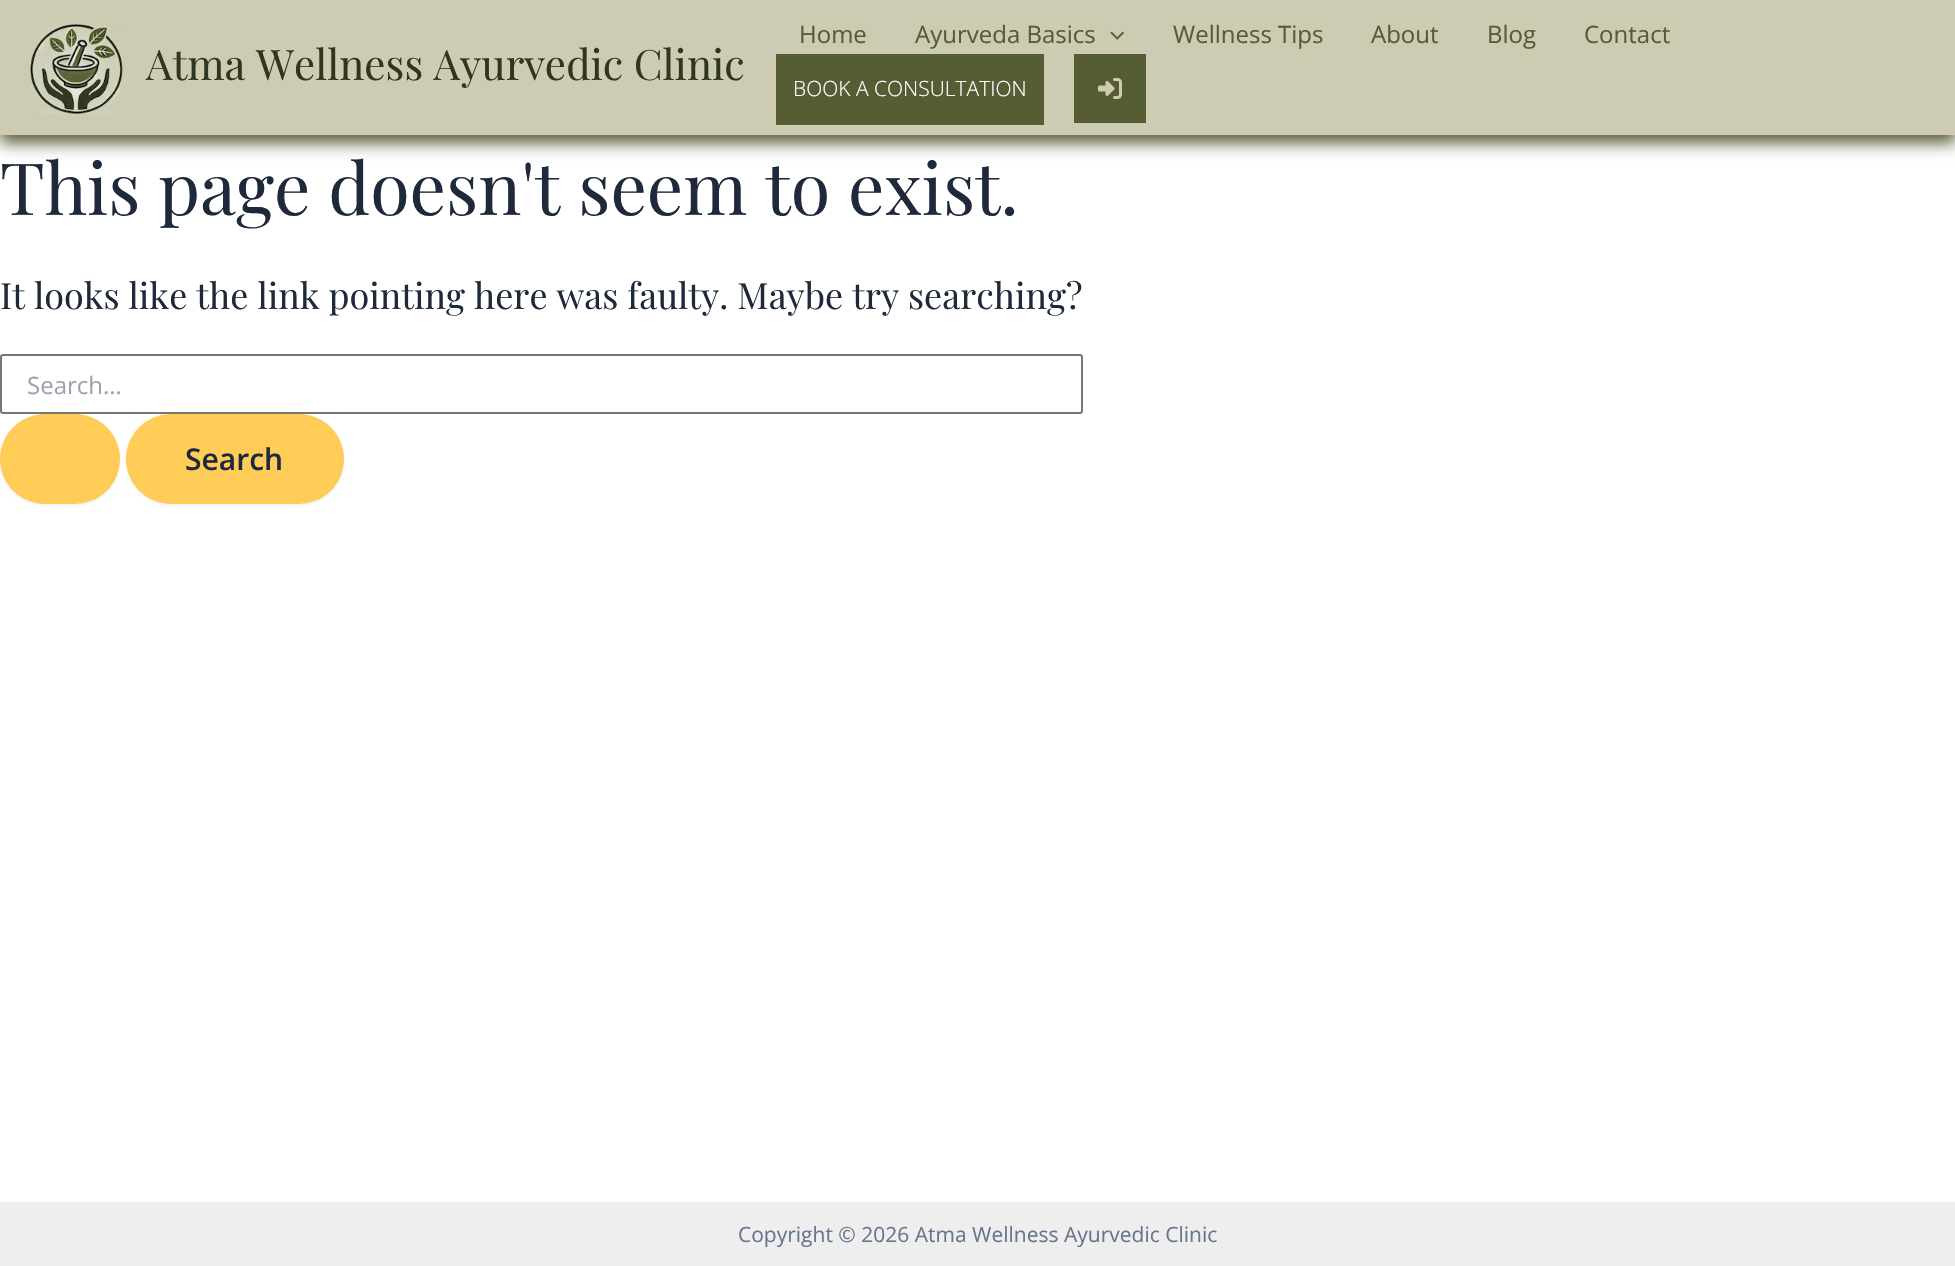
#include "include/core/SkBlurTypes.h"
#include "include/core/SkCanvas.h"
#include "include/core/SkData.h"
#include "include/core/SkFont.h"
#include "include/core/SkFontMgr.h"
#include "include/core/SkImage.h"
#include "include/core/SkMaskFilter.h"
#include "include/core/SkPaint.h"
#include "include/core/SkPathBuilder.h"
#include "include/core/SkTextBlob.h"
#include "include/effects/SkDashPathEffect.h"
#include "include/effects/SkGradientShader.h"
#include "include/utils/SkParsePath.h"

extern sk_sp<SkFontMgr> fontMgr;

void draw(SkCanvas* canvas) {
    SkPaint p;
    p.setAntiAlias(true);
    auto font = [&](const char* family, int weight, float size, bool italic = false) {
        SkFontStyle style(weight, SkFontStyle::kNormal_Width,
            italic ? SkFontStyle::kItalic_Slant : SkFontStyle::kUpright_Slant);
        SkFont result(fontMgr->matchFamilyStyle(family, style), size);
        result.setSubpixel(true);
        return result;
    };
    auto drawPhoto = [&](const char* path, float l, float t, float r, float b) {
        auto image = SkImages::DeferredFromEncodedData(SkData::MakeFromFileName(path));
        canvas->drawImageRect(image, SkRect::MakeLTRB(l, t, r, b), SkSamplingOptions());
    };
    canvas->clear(0xFFFFFFFF);
    p.setColor(0xFF565C33);
    p.setMaskFilter(SkMaskFilter::MakeBlur(kNormal_SkBlurStyle, 7.5f));
    canvas->drawRect(SkRect::MakeLTRB(0, 8, 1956, 143), p);
    p.setMaskFilter(nullptr);
    p.setColor(0xFFCDCBB1);
    canvas->drawRect(SkRect::MakeLTRB(0, 0, 1955, 135), p);
    drawPhoto("media/1.png", 30, 24, 123, 114);
    auto font1 = font("Playfair Display", 400, 42);
    p.setColor(0xFF303522);
    canvas->drawString("Atma Wellness Ayurvedic Clinic", 146, 80, font1, p);
    auto font2 = font("Open Sans", 400, 24);
    p.setColor(0xFF565C33);
    canvas->drawString("Home", 799, 43, font2, p);
    canvas->drawString("Ayurveda Basics", 915, 43, font2, p);
    drawPhoto("media/2.png", 1110, 31, 1124, 40);
    {
        const struct { const char* s; float x, y; } items[] = {
            {"Wellness Tips", 1173, 43},
            {"About", 1371, 43},
            {"Blog", 1487, 43},
            {"Contact", 1584, 43},
        };
        for (auto [s, x, y] : items) {
            canvas->drawString(s, x, y, font2, p);
        }
    }
    canvas->drawRect(SkRect::MakeLTRB(776, 54, 1044, 125), p);
    auto font3 = font("Open Sans", 300, 21);
    p.setColor(0xFFFFFFFF);
    canvas->drawString("BOOK A CONSULTATION", 793, 96, font3, p);
    p.setColor(0xFF555C33);
    canvas->drawRect(SkRect::MakeLTRB(1074, 54, 1146, 123), p);
    drawPhoto("media/3.png", 1098, 78, 1122, 99);
    auto font4 = font("Playfair Display", 400, 72);
    p.setColor(0xFF1E293B);
    canvas->drawString("This page doesn't seem to exist.", 0, 215, font4, p);
    auto font5 = font("Playfair Display", 400, 36);
    canvas->drawString("It looks like the link pointing here was faulty. Maybe try searching?", 0, 309, font5, p);
    p.setStyle(SkPaint::kStroke_Style);
    p.setStrokeWidth(2);
    p.setColor(0xFF767676);
    canvas->drawRoundRect(SkRect::MakeLTRB(1, 355, 1082, 413), 2, 2, p);
    p.setStyle(SkPaint::kFill_Style);
    p.setColor(0xFF9CA3AF);
    canvas->drawString("Search...", 27, 394, font2, p);
    p.setColor(0x0D000000);
    p.setMaskFilter(SkMaskFilter::MakeBlur(kNormal_SkBlurStyle, 1.5f));
    canvas->drawRoundRect(SkRect::MakeLTRB(0, 416, 120, 506), 45, 45, p);
    p.setMaskFilter(nullptr);
    p.setColor(0xFFFFCD57);
    canvas->drawRoundRect(SkRect::MakeLTRB(0, 414, 120, 504), 45, 45, p);
    p.setColor(0x0D000000);
    p.setMaskFilter(SkMaskFilter::MakeBlur(kNormal_SkBlurStyle, 1.5f));
    canvas->drawRoundRect(SkRect::MakeLTRB(126, 416, 344, 506), 45, 45, p);
    p.setMaskFilter(nullptr);
    p.setColor(0xFFFFCD57);
    canvas->drawRoundRect(SkRect::MakeLTRB(126, 414, 344, 504), 45, 45, p);
    auto font6 = font("Open Sans", 600, 30);
    p.setColor(0xFF1E293B);
    canvas->drawString("Search", 185, 470, font6, p);
    p.setColor(0xFFEEEEEE);
    canvas->drawRect(SkRect::MakeLTRB(0, 1202, 1955, 1266), p);
    auto font7 = font("Open Sans", 400, 21);
    p.setColor(0xFF67768E);
    canvas->drawString("Copyright © 2026 Atma Wellness Ayurvedic Clinic", 738, 1242, font7, p);
}
